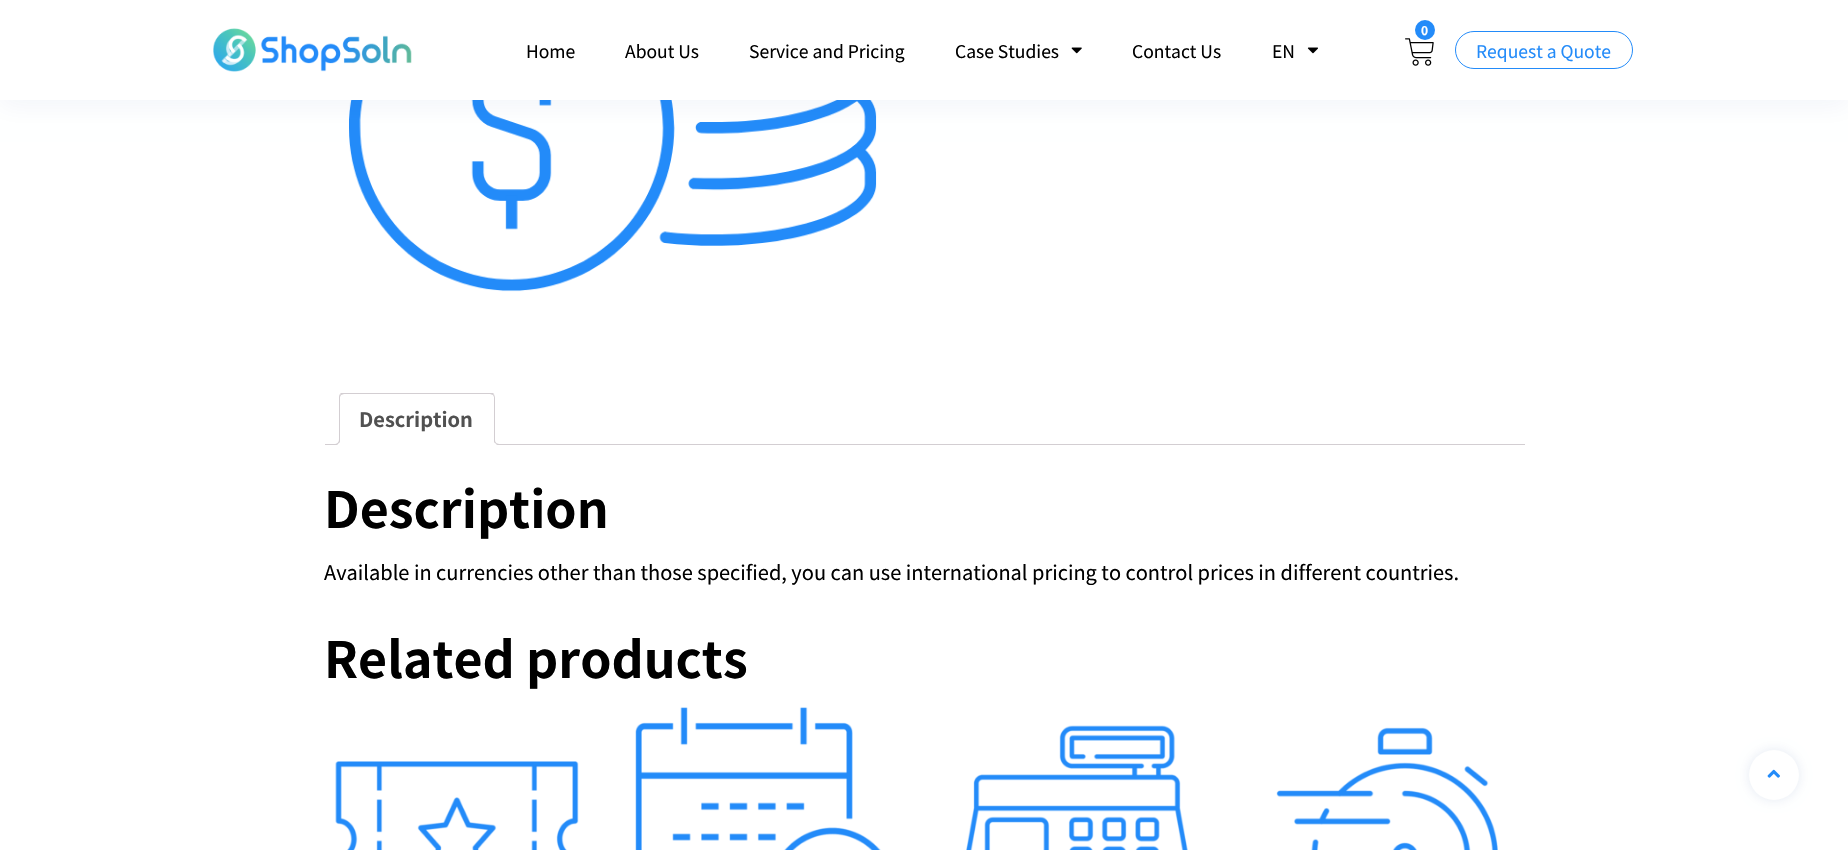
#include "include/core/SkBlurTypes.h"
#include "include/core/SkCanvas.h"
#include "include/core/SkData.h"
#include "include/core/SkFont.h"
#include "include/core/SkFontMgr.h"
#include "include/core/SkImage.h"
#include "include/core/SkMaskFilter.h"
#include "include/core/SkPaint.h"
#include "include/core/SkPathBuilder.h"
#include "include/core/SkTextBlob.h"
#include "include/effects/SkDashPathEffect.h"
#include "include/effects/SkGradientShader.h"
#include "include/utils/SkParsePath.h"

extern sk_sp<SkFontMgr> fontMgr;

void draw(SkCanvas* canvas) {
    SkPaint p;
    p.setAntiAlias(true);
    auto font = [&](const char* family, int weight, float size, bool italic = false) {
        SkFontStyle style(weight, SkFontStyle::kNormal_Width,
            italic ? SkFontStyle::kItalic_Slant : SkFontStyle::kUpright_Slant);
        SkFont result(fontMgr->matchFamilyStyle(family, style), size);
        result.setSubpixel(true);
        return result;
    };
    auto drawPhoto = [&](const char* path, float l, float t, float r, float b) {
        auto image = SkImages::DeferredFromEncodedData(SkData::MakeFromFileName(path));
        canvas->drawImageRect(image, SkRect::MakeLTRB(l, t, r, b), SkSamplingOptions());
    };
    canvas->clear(0xFFFFFFFF);
    drawPhoto("media/5.png", 349, 100, 877, 292);
    p.setColor(0x0D003185);
    p.setMaskFilter(SkMaskFilter::MakeBlur(kNormal_SkBlurStyle, 12.5f));
    canvas->drawRect(SkRect::MakeLTRB(0, 5, 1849, 105), p);
    p.setMaskFilter(nullptr);
    p.setColor(0xFFFFFFFF);
    canvas->drawRect(SkRect::MakeLTRB(0, 0, 1848, 100), p);
    drawPhoto("media/1.png", 213, 28, 412, 72);
    auto font1 = font("Noto Sans HK", 400, 17.5f);
    p.setColor(0xFF000000);
    {
        const struct { const char* s; float x, y; } items[] = {
            {"Home", 526, 58},
            {"About Us", 625, 58},
            {"Service and Pricing", 749, 58},
            {"Case Studies", 955, 58},
        };
        for (auto [s, x, y] : items) {
            canvas->drawString(s, x, y, font1, p);
        }
    }
    drawPhoto("media/2.png", 1071, 47, 1082, 54);
    canvas->drawString("Contact Us", 1132, 58, font1, p);
    canvas->drawString("EN", 1272, 58, font1, p);
    drawPhoto("media/3.png", 1307, 47, 1318, 54);
    drawPhoto("media/4.png", 1405, 38, 1434, 66);
    p.setColor(0xFF238BF9);
    canvas->drawCircle(1425, 30, 10, p);
    auto font2 = font("Noto Sans HK", 700, 12);
    p.setColor(0xFFFFFFFF);
    canvas->drawString("0", 1421, 35, font2, p);
    p.setStyle(SkPaint::kStroke_Style);
    p.setStrokeWidth(1);
    p.setColor(0xFF238BF9);
    canvas->drawRoundRect(SkRect::MakeLTRB(1455.5f, 31.5f, 1632.5f, 68.5f), 18.5f, 18.5f, p);
    p.setStyle(SkPaint::kFill_Style);
    canvas->drawString("Request a Quote", 1476, 58, font1, p);
    p.setColor(0xFFD3CED2);
    canvas->drawRect(SkRect::MakeLTRB(325, 444, 1525, 445), p);
    p.setColor(0xFFFFFFFF);
    canvas->drawPath(SkPathBuilder().moveTo(344, 393).lineTo(490, 393).cubicTo(493, 393, 495, 395, 495, 398).lineTo(495, 445).lineTo(339, 445).lineTo(339, 398).cubicTo(339, 395, 341, 393, 344, 393).close().detach(), p);
    canvas->save();
    canvas->clipRect(SkRect::MakeLTRB(325, 393, 1525, 445));
    p.setColor(0xFFD3CED2);
    canvas->drawPath(SkPathBuilder().moveTo(344, 394).lineTo(341, 395).lineTo(340, 394).cubicTo(346, 387, 358, 392, 367, 392).lineTo(492, 392).lineTo(494, 394).lineTo(493, 395).lineTo(490, 394).close().detach(), p);
    canvas->restore();
    canvas->drawPath(SkPathBuilder().moveTo(495, 445).lineTo(495, 398).cubicTo(495, 396, 494, 395, 494, 394).lineTo(493, 395).lineTo(494, 397).lineTo(494, 444).close().detach(), p);
    p.setColor(0xFFFFFFFF);
    canvas->drawPath(SkPathBuilder().moveTo(495, 445).lineTo(494, 444).lineTo(340, 444).lineTo(339, 445).close().detach(), p);
    p.setColor(0xFFD3CED2);
    canvas->drawPath(SkPathBuilder().moveTo(339, 445).lineTo(339, 398).cubicTo(339, 397, 339, 395, 340, 394).lineTo(341, 395).lineTo(340, 397).lineTo(340, 444).close().detach(), p);
    auto font3 = font("Noto Sans HK", 700, 20);
    p.setColor(0xFF515151);
    canvas->drawString("Description", 359, 427, font3, p);
    canvas->save();
    canvas->clipRect(SkRect::MakeLTRB(325, 393, 1525, 445));
    p.setColor(0xFFFFFFFF);
    canvas->drawPath(SkPathBuilder().moveTo(336, 445).lineTo(336, 448).cubicTo(341.5f, 448, 343, 446.5f, 343, 441).lineTo(340, 441).cubicTo(339.5f, 443, 338, 444.5f, 336, 445).close().detach(), p);
    canvas->restore();
    p.setColor(0xFFD3CED2);
    canvas->drawPath(SkPathBuilder(SkPathFillType::kEvenOdd).moveTo(334, 439).lineTo(340, 439).cubicTo(340, 443, 338, 445, 334, 445).close().moveTo(334, 439).lineTo(339, 439).cubicTo(339, 442.5f, 337.5f, 444, 334, 444).close().detach(), p);
    canvas->save();
    canvas->clipRect(SkRect::MakeLTRB(325, 393, 1525, 445));
    p.setColor(0xFFFFFFFF);
    canvas->drawPath(SkPathBuilder().moveTo(491, 441).cubicTo(491, 446.5f, 492.5f, 448, 498, 448).lineTo(498, 445).cubicTo(496, 444.5f, 494.5f, 443, 494, 441).close().detach(), p);
    canvas->restore();
    p.setColor(0xFFD3CED2);
    canvas->drawPath(SkPathBuilder(SkPathFillType::kEvenOdd).moveTo(494, 439).lineTo(500, 439).lineTo(500, 445).cubicTo(497, 445, 494, 443.5f, 494, 440).close().moveTo(495, 439).lineTo(500, 439).lineTo(500, 444).cubicTo(497.5f, 444, 495, 443, 495, 440).close().detach(), p);
    auto font4 = font("Noto Sans HK", 700, 50);
    p.setColor(0xFF000000);
    canvas->drawString("Description", 324, 528, font4, p);
    auto font5 = font("Noto Sans HK", 400, 20);
    canvas->drawString("Available in currencies other than those specified, you can use international pricing to control prices in different countries.", 324, 580, font5, p);
    canvas->drawString("Related products", 324, 678, font4, p);
    drawPhoto("media/6.png", 335, 761, 579, 850);
    drawPhoto("media/7.png", 635, 707, 881, 850);
    drawPhoto("media/8.png", 966, 725, 1188, 850);
    drawPhoto("media/9.png", 1276, 727, 1498, 850);
    p.setColor(0x1A003185);
    p.setMaskFilter(SkMaskFilter::MakeBlur(kNormal_SkBlurStyle, 6));
    canvas->drawRoundRect(SkRect::MakeLTRB(1749, 750, 1799, 800), 25, 25, p);
    p.setMaskFilter(nullptr);
    p.setColor(0xFFFFFFFF);
    canvas->drawCircle(1774, 775, 25, p);
    drawPhoto("media/10.png", 1767, 769, 1780, 778);
}
